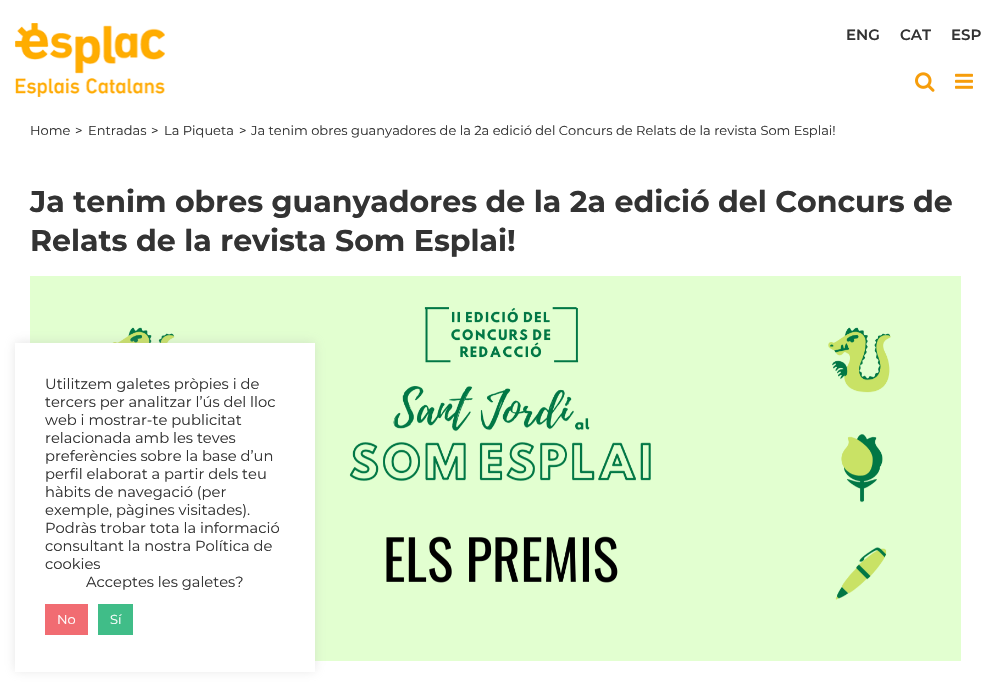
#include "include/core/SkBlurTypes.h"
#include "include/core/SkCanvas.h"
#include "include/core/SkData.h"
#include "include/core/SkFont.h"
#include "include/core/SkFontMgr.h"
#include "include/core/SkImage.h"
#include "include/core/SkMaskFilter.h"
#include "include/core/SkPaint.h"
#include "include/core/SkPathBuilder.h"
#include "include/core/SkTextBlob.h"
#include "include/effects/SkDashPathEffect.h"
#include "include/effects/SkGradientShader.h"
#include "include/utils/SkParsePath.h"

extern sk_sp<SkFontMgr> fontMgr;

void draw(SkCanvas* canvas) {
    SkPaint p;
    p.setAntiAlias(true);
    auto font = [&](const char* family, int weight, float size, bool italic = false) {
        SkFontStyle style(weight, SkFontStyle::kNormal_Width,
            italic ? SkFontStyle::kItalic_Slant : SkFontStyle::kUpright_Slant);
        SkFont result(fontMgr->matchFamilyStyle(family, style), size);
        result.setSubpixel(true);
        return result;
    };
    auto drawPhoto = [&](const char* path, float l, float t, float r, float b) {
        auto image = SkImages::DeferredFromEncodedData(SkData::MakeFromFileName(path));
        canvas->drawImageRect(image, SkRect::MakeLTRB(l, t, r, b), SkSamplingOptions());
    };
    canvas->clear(0xFFFFFFFF);
    drawPhoto("media/1.png", 15, 23, 165, 97);
    drawPhoto("media/2.png", 915, 72, 935, 92);
    drawPhoto("media/3.png", 955, 73, 973, 89);
    auto font1 = font("Montserrat", 600, 15);
    p.setColor(0xFF333333);
    {
        const struct { const char* s; float x, y; } items[] = {
            {"ENG", 846, 40},
            {"CAT", 900, 40},
            {"ESP", 951, 40},
        };
        for (auto [s, x, y] : items) {
            canvas->drawString(s, x, y, font1, p);
        }
    }
    auto font2 = font("Montserrat", 400, 13);
    {
        const struct { const char* s; float x, y; } items[] = {
            {"Home", 30, 135},
            {">", 75, 135},
            {"Entradas", 88, 135},
            {">", 151, 135},
            {"La Piqueta", 164, 135},
            {">", 239, 135},
            {"Ja tenim obres guanyadores de la 2a edició del Concurs de Relats de la revista Som Esplai!", 251, 135},
        };
        for (auto [s, x, y] : items) {
            canvas->drawString(s, x, y, font2, p);
        }
    }
    auto font3 = font("Montserrat", 700, 30);
    canvas->drawString("Ja tenim obres guanyadores de la 2a edició del Concurs de", 30, 212, font3, p);
    canvas->drawString("Relats de la revista Som Esplai!", 30, 251, font3, p);
    drawPhoto("media/4.png", 30, 276, 961, 661);
    p.setColor(0x4DACABAB);
    p.setMaskFilter(SkMaskFilter::MakeBlur(kNormal_SkBlurStyle, 5));
    canvas->drawRect(SkRect::MakeLTRB(15, 342, 315, 671), p);
    p.setMaskFilter(nullptr);
    p.setColor(0xFFFFFFFF);
    canvas->drawRect(SkRect::MakeLTRB(15, 343, 315, 672), p);
    auto font4 = font("Montserrat", 400, 14.7f);
    p.setColor(0xFF333333);
    {
        const struct { const char* s; float x, y; } items[] = {
            {"Utilitzem galetes pròpies i de", 45, 389},
            {"tercers per analitzar l’ús del lloc", 45, 407},
            {"web i mostrar-te publicitat", 45, 425},
            {"relacionada amb les teves", 45, 443},
            {"preferències sobre la base d’un", 45, 461},
            {"perfil elaborat a partir dels teu", 45, 479},
            {"hàbits de navegació (per", 45, 497},
            {"exemple, pàgines visitades).", 45, 515},
            {"Podràs trobar tota la informació", 45, 533},
            {"consultant la nostra Política de", 45, 551},
            {"cookies", 45, 569},
            {"Acceptes les galetes?", 86, 587},
        };
        for (auto [s, x, y] : items) {
            canvas->drawString(s, x, y, font4, p);
        }
    }
    p.setColor(0xFFF16C72);
    canvas->drawRect(SkRect::MakeLTRB(45, 604, 88, 635), p);
    p.setColor(0xFFFFFFFF);
    canvas->drawString("No", 57, 624, font2, p);
    p.setColor(0xFF40BD88);
    canvas->drawRect(SkRect::MakeLTRB(98, 604, 133, 635), p);
    p.setColor(0xFFFFFFFF);
    canvas->drawString("Sí", 110, 624, font2, p);
}
